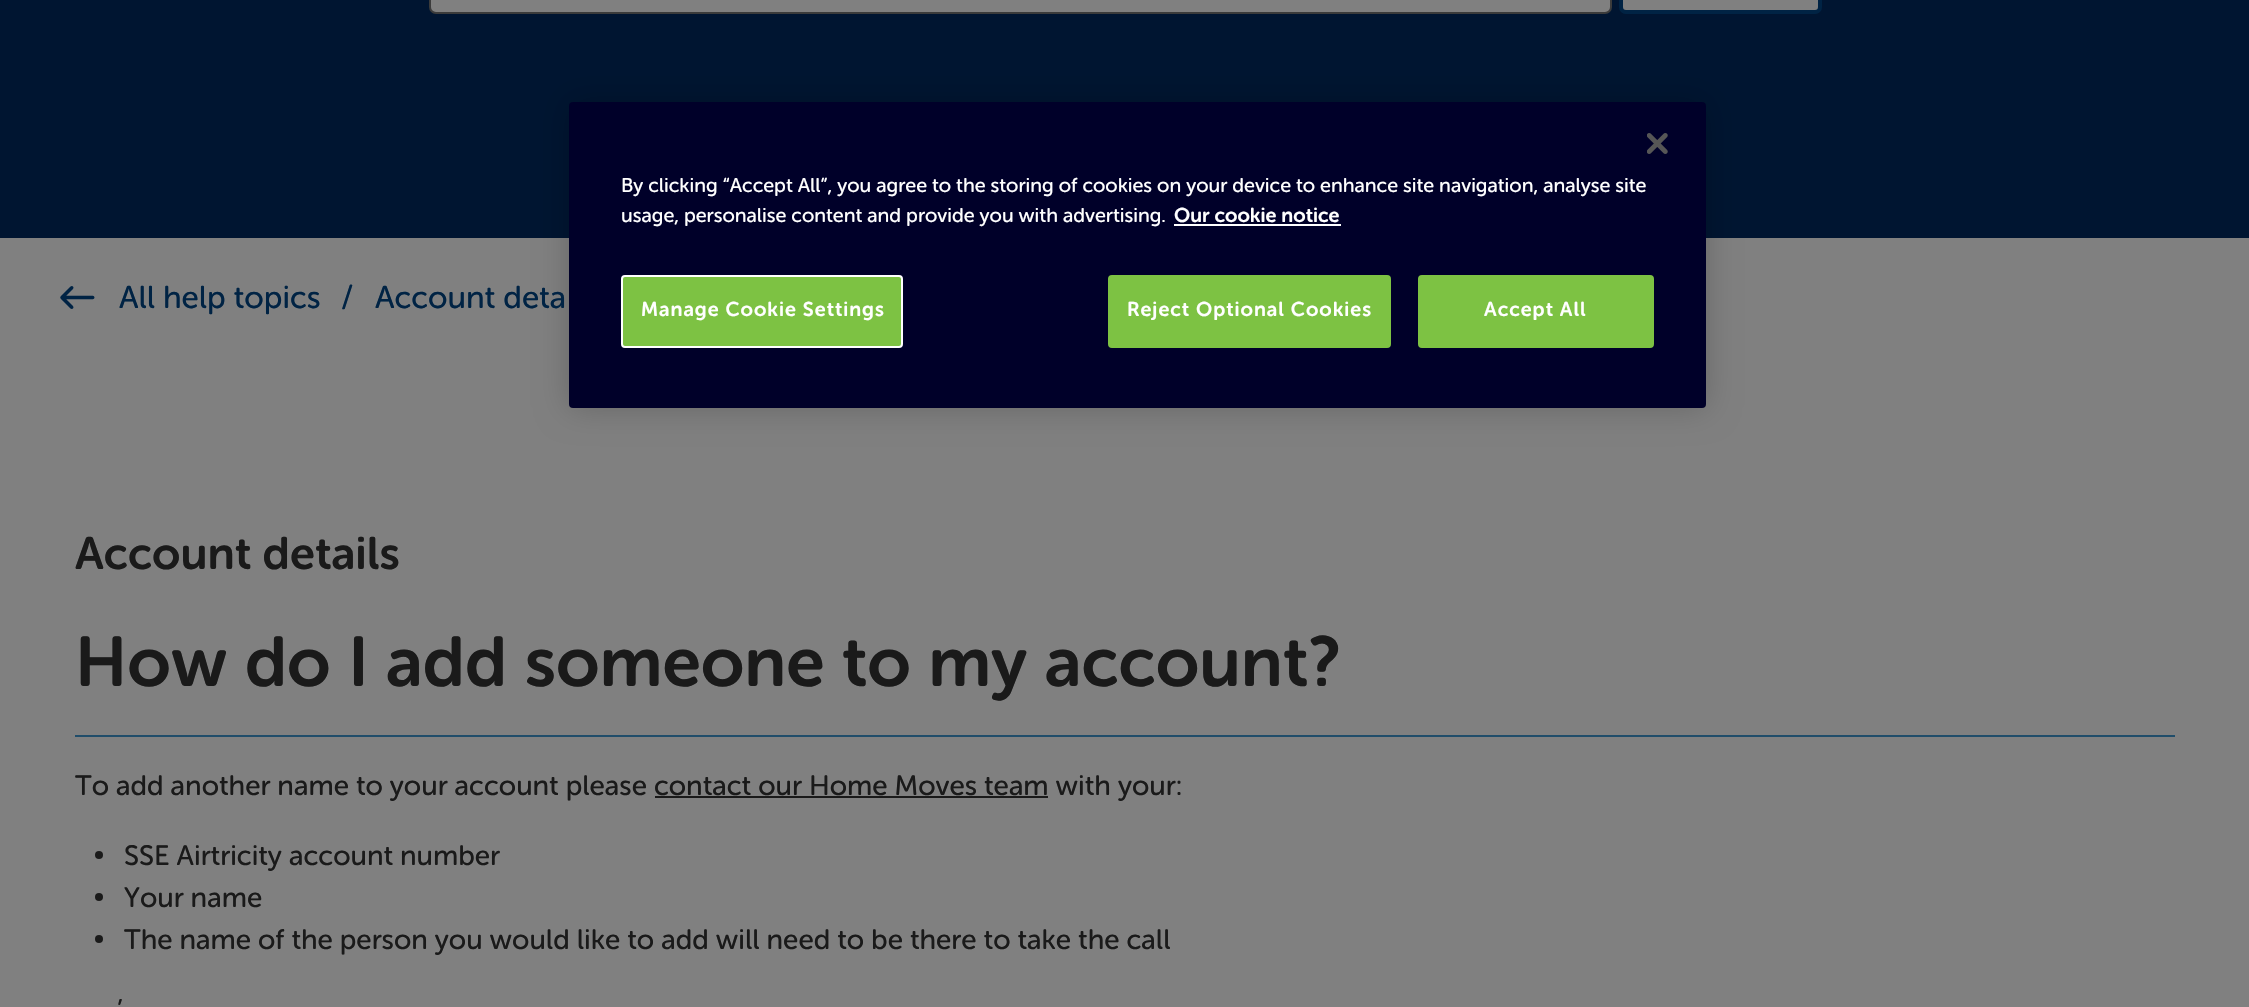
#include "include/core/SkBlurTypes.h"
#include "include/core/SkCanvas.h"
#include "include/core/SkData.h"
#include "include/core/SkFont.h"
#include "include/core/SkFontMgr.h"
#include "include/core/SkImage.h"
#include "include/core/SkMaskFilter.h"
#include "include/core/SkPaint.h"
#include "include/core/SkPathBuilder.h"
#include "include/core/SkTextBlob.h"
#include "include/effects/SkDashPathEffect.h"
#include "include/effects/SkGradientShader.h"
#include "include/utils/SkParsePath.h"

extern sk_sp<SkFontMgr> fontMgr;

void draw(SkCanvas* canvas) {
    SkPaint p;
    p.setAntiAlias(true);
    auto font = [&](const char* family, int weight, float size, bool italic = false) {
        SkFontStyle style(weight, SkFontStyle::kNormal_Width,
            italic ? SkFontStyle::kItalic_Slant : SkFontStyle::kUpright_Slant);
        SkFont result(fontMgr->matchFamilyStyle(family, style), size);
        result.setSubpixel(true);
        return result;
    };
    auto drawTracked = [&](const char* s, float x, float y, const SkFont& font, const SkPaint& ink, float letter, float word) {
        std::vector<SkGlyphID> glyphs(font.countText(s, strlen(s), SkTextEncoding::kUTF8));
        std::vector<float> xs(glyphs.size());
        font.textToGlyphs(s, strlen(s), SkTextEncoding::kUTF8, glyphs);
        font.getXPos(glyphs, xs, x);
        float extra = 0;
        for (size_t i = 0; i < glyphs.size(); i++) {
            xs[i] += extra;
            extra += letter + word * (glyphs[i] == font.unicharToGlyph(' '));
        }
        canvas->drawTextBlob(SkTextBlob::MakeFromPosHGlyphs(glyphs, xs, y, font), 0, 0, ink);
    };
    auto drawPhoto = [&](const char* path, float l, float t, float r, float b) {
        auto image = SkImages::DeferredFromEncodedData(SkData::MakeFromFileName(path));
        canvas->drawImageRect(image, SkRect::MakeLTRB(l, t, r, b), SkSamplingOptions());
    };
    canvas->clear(0xFF808080);
    p.setColor(0xFF001531);
    canvas->drawRect(SkRect::MakeLTRB(0, 0, 2249, 238), p);
    p.setColor(0x33000000);
    p.setMaskFilter(SkMaskFilter::MakeBlur(kNormal_SkBlurStyle, 16));
    canvas->drawRoundRect(SkRect::MakeLTRB(569, 102, 1706, 408), 4, 4, p);
    p.setMaskFilter(nullptr);
    p.setColor(0xFF000029);
    canvas->drawRoundRect(SkRect::MakeLTRB(569, 102, 1706, 408), 4, 4, p);
    drawPhoto("media/1.png", 1647, 133, 1668, 154);
    auto font1 = font("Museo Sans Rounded", 400, 19.92f);
    p.setColor(0xFFFFFFFF);
    canvas->drawString("By clicking “Accept All”, you agree to the storing of cookies on your device to enhance site navigation, analyse site", 621, 192, font1, p);
    canvas->drawString("usage, personalise content and provide you with advertising.", 621, 222, font1, p);
    auto font2 = font("Museo Sans Rounded", 600, 19.92f);
    canvas->drawString("Our cookie notice", 1174, 222, font2, p);
    canvas->drawRect(SkRect::MakeLTRB(1174, 224, 1341, 226), p);
    p.setColor(0xFF7DC243);
    canvas->drawRoundRect(SkRect::MakeLTRB(622, 276, 902, 347), 3, 3, p);
    p.setStyle(SkPaint::kStroke_Style);
    p.setStrokeWidth(2);
    p.setColor(0xFFFFFFFF);
    canvas->drawRoundRect(SkRect::MakeLTRB(622, 276, 902, 347), 3, 3, p);
    p.setStyle(SkPaint::kFill_Style);
    drawTracked("Manage Cookie Settings", 641, 316, font2, p, 1, 0);
    p.setColor(0xFF7DC243);
    canvas->drawRoundRect(SkRect::MakeLTRB(1109, 276, 1390, 347), 3, 3, p);
    p.setStyle(SkPaint::kStroke_Style);
    canvas->drawRoundRect(SkRect::MakeLTRB(1109, 276, 1390, 347), 3, 3, p);
    p.setStyle(SkPaint::kFill_Style);
    p.setColor(0xFFFFFFFF);
    drawTracked("Reject Optional Cookies", 1127, 316, font2, p, 1, 0);
    p.setColor(0xFF7DC243);
    canvas->drawRoundRect(SkRect::MakeLTRB(1419, 276, 1653, 347), 3, 3, p);
    p.setStyle(SkPaint::kStroke_Style);
    canvas->drawRoundRect(SkRect::MakeLTRB(1419, 276, 1653, 347), 3, 3, p);
    p.setStyle(SkPaint::kFill_Style);
    p.setColor(0xFFFFFFFF);
    drawTracked("Accept All", 1484, 316, font2, p, 1, 0);
    p.setColor(0xFF808080);
    canvas->drawRoundRect(SkRect::MakeLTRB(430, -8, 1611, 13), 6, 6, p);
    p.setStyle(SkPaint::kStroke_Style);
    p.setColor(0xFF3B3B3B);
    canvas->drawRoundRect(SkRect::MakeLTRB(430, -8, 1611, 13), 6, 6, p);
    p.setStyle(SkPaint::kFill_Style);
    p.setColor(0xFF808080);
    canvas->drawRoundRect(SkRect::MakeLTRB(1621, -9, 1820, 12), 5, 5, p);
    p.setStyle(SkPaint::kStroke_Style);
    p.setStrokeWidth(4);
    p.setColor(0xFF002344);
    canvas->drawRoundRect(SkRect::MakeLTRB(1621, -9, 1820, 12), 5, 5, p);
    drawPhoto("media/2.png", 60, 286, 95, 309);
    auto font3 = font("Museo Sans Rounded", 400, 31.5f);
    p.setStyle(SkPaint::kFill_Style);
    {
        const struct { const char* s; float x, y; } items[] = {
            {"All help topics", 119, 308},
            {"/", 341, 308},
            {"Account deta", 375, 308},
        };
        for (auto [s, x, y] : items) {
            canvas->drawString(s, x, y, font3, p);
        }
    }
    auto font4 = font("Museo Sans Rounded", 600, 45.5f);
    p.setColor(0xFF1A1A1A);
    canvas->drawString("Account details", 75, 569, font4, p);
    p.setColor(0xFF204D6A);
    canvas->drawRect(SkRect::MakeLTRB(75, 735, 2175, 737), p);
    auto font5 = font("Museo Sans Rounded", 600, 70);
    p.setColor(0xFF1A1A1A);
    canvas->drawString("How do I add someone to my account?", 75, 686, font5, p);
    auto font6 = font("Museo Sans Rounded", 400, 28);
    canvas->drawString("To add another name to your account please contact our Home Moves team with your:", 75, 795, font6, p);
    canvas->drawRect(SkRect::MakeLTRB(655, 796, 1048, 798), p);
    canvas->drawCircle(99, 855, 4, p);
    canvas->drawString("SSE Airtricity account number", 124, 865, font6, p);
    canvas->drawCircle(99, 897, 4, p);
    canvas->drawString("Your name", 124, 907, font6, p);
    canvas->drawCircle(99, 939, 4, p);
    canvas->drawString("The name of the person you would like to add will need to be there to take the call", 124, 949, font6, p);
    canvas->drawString("’", 117, 1019, font6, p);
}
